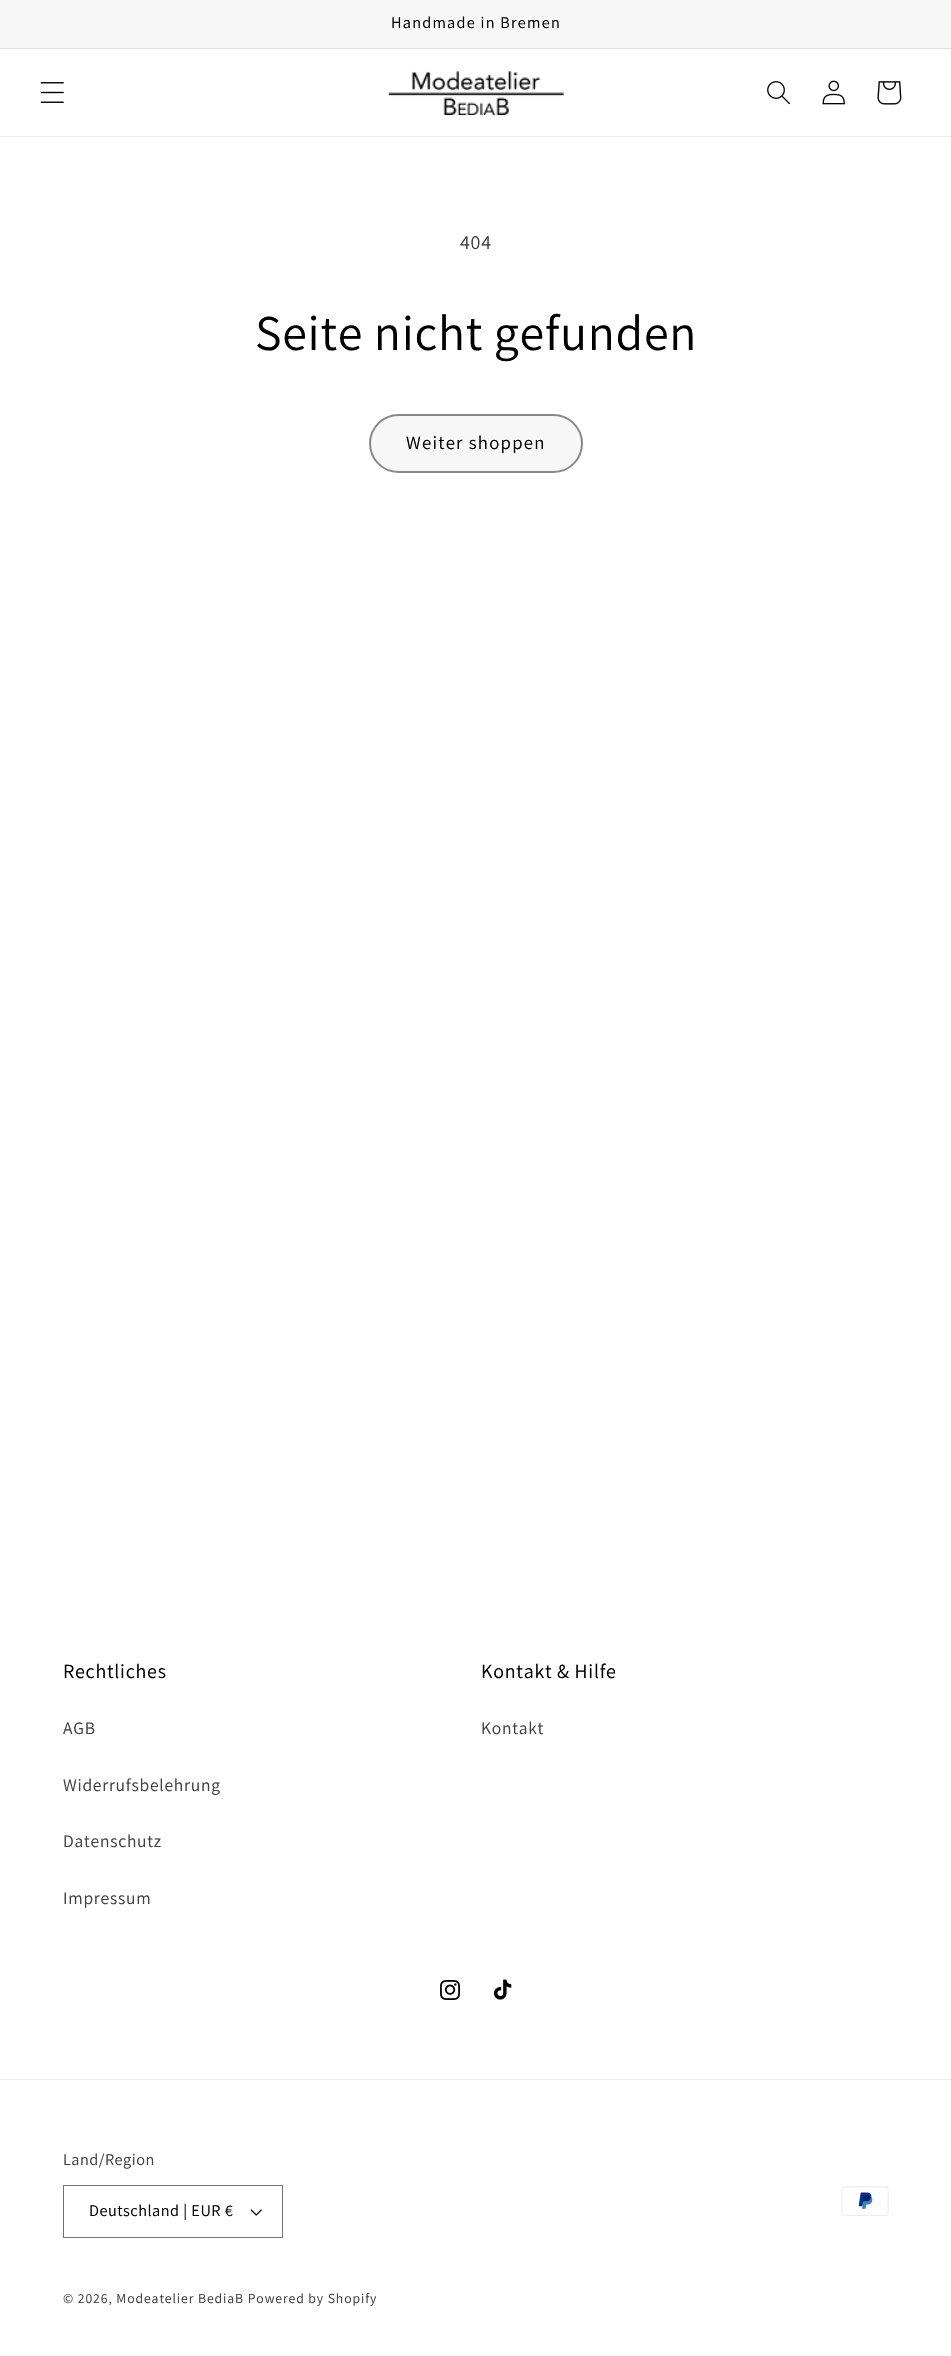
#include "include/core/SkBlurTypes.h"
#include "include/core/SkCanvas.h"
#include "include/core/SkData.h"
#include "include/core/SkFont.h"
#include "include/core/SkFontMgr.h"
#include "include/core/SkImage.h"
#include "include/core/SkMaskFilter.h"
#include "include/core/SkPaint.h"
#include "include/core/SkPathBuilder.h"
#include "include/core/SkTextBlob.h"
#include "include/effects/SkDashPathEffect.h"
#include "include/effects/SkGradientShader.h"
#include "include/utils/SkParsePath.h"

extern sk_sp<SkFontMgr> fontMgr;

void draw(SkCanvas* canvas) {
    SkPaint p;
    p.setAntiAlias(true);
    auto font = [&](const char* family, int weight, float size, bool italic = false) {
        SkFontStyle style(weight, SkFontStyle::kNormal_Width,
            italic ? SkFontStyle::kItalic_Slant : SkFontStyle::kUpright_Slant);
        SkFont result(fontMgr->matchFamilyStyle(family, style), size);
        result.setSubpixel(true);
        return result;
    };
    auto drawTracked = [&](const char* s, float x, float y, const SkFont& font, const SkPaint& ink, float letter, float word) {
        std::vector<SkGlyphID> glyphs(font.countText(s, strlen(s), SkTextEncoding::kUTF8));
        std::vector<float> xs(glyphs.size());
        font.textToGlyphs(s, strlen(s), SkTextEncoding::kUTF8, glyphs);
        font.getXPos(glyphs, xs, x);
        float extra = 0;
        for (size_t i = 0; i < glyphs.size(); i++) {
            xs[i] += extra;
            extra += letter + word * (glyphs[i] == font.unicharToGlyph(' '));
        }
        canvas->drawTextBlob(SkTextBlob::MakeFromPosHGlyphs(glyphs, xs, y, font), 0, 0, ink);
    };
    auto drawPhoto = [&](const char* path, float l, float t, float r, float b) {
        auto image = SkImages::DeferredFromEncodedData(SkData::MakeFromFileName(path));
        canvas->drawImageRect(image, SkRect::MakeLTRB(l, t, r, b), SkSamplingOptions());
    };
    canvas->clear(0xFFFFFFFF);
    p.setColor(0xFFF7F7F7);
    canvas->drawRect(SkRect::MakeLTRB(0, 0, 951, 48), p);
    p.setColor(0xFFE3E3E3);
    canvas->drawRect(SkRect::MakeLTRB(0, 48, 951, 49), p);
    auto font1 = font("Assistant", 400, 16.25f);
    p.setColor(0xFF000000);
    drawTracked("Handmade in Bremen", 391, 28, font1, p, 1.25f, 0);
    p.setColor(0xFFEBEBEB);
    canvas->drawRect(SkRect::MakeLTRB(0, 136, 951, 137), p);
    drawPhoto("media/1.png", 40, 82, 64, 103);
    drawPhoto("media/2.png", 388, 71, 564, 115);
    drawPhoto("media/3.png", 767, 81, 790, 105);
    drawPhoto("media/4.png", 822, 80, 845, 105);
    drawPhoto("media/5.png", 877, 81, 902, 105);
    auto font2 = font("Assistant", 400, 20);
    p.setColor(0xFF404040);
    drawTracked("404", 460, 249, font2, p, 0.75f, 0);
    auto font3 = font("Assistant", 400, 50);
    p.setColor(0xFF000000);
    drawTracked("Seite nicht gefunden", 255, 350, font3, p, 0.75f, 0);
    p.setColor(0xFFF7F7F7);
    canvas->drawRoundRect(SkRect::MakeLTRB(369, 414, 583, 473), 29.5f, 29.5f, p);
    p.setStyle(SkPaint::kStroke_Style);
    p.setStrokeWidth(2);
    p.setColor(0xFF888888);
    canvas->drawRoundRect(SkRect::MakeLTRB(370, 415, 582, 472), 28.5f, 28.5f, p);
    auto font4 = font("Assistant", 400, 18.75f);
    p.setStyle(SkPaint::kFill_Style);
    p.setColor(0xFF000000);
    drawTracked("Weiter shoppen", 406, 449, font4, p, 1.25f, 0);
    drawTracked("Rechtliches", 63, 1678, font2, p, 0.75f, 0);
    auto font5 = font("Assistant", 400, 17.5f);
    p.setColor(0xFF404040);
    {
        const struct { const char* s; float x, y; } items[] = {
            {"AGB", 63, 1734},
            {"Widerrufsbelehrung", 63, 1791},
            {"Datenschutz", 63, 1847},
            {"Impressum", 63, 1904},
        };
        for (auto [s, x, y] : items) {
            drawTracked(s, x, y, font5, p, 0.75f, 0);
        }
    }
    p.setColor(0xFF000000);
    drawTracked("Kontakt & Hilfe", 481, 1678, font2, p, 0.75f, 0);
    p.setColor(0xFF404040);
    drawTracked("Kontakt", 481, 1734, font5, p, 0.75f, 0);
    drawPhoto("media/6.png", 440, 1980, 460, 2000);
    drawPhoto("media/7.png", 493, 1979, 512, 2000);
    p.setColor(0xFFEBEBEB);
    canvas->drawRect(SkRect::MakeLTRB(0, 2079, 951, 2080), p);
    p.setColor(0xFF404040);
    drawTracked("Land/Region", 63, 2165, font1, p, 0.5f, 0);
    drawPhoto("media/8.png", 250, 2209, 262, 2216);
    p.setStyle(SkPaint::kStroke_Style);
    p.setStrokeWidth(1);
    p.setColor(0xFF737373);
    canvas->drawRect(SkRect::MakeLTRB(63.5f, 2185.5f, 282.5f, 2237.5f), p);
    p.setStyle(SkPaint::kFill_Style);
    p.setColor(0xFF000000);
    drawTracked("Deutschland | EUR €", 89, 2216, font1, p, 0.5f, 0);
    drawPhoto("media/9.png", 841, 2186, 889, 2216);
    auto font6 = font("Assistant", 400, 13.75f);
    p.setColor(0xFF404040);
    drawTracked("© 2026, Modeatelier BediaB Powered by Shopify", 63, 2303, font6, p, 0.9f, 0);
}
